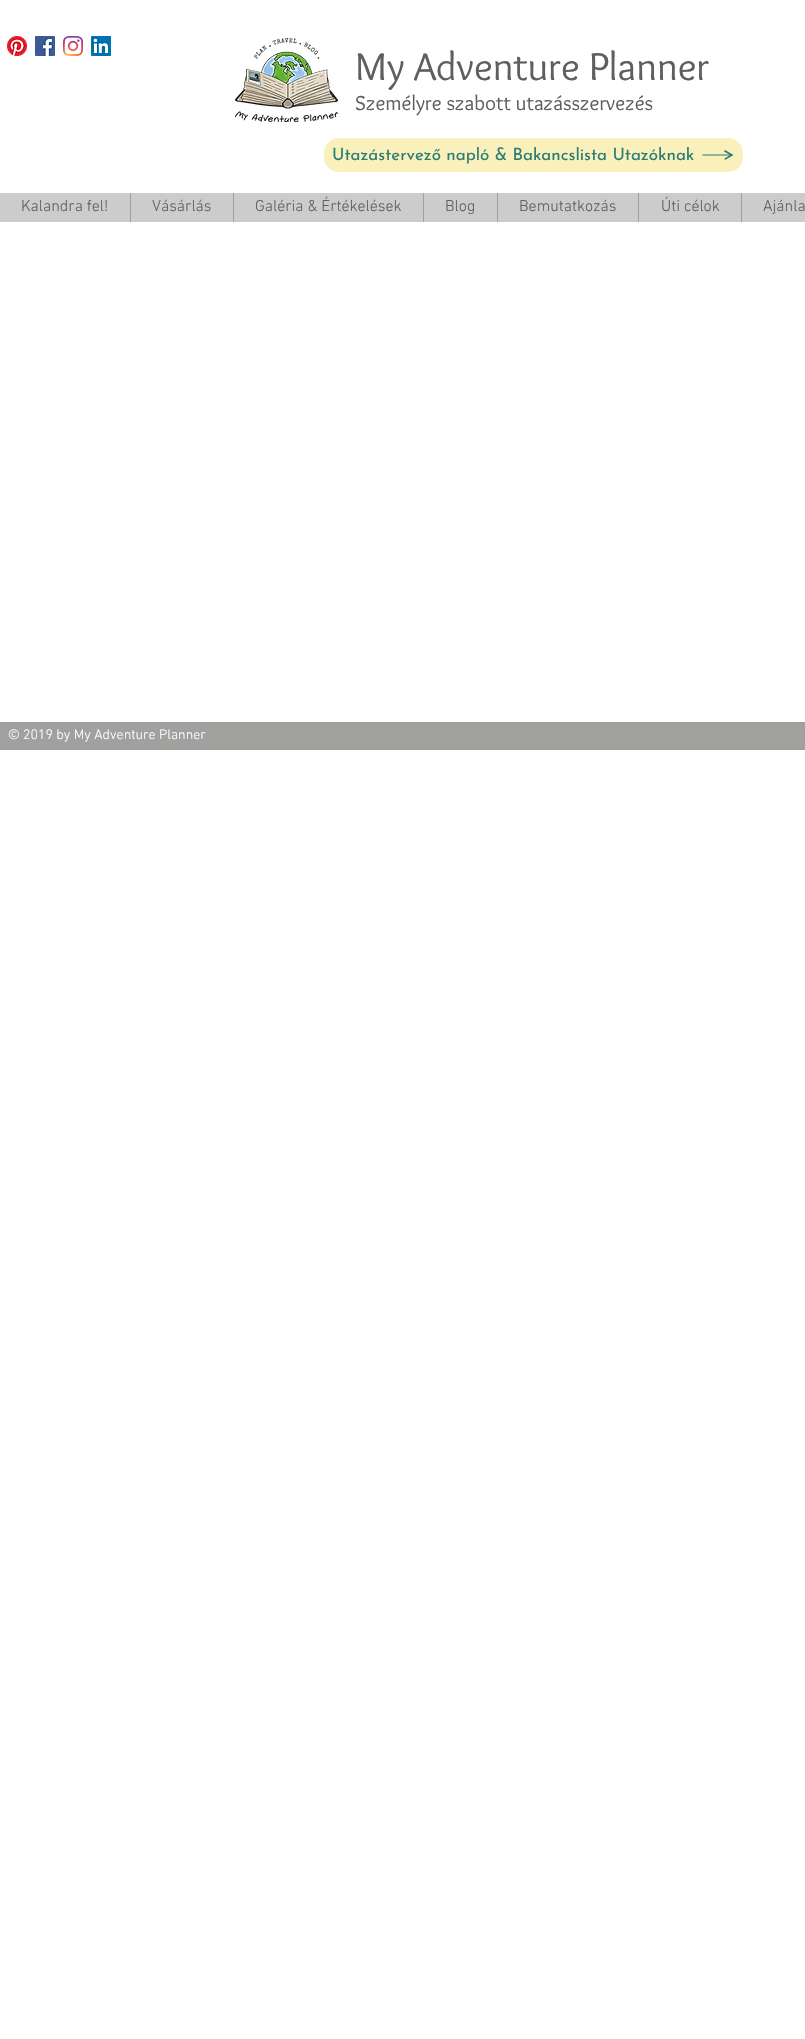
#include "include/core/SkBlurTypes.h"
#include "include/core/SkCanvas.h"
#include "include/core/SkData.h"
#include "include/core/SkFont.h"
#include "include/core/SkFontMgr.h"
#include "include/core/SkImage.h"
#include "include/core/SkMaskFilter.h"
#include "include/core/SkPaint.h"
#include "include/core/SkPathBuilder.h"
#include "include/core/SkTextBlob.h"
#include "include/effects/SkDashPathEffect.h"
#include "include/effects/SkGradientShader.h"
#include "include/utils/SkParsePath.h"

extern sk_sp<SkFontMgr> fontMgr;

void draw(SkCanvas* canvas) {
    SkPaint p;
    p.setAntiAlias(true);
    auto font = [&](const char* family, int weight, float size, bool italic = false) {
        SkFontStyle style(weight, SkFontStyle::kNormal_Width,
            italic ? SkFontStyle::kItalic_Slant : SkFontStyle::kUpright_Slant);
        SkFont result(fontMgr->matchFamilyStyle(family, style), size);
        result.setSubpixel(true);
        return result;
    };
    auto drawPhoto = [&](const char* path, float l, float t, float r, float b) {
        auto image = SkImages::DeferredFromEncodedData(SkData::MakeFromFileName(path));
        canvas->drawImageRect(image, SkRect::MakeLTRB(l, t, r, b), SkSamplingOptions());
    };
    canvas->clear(0xFFFFFFFF);
    drawPhoto("media/1.png", 7, 36, 27, 56);
    drawPhoto("media/2.png", 35, 36, 55, 56);
    drawPhoto("media/3.png", 63, 36, 83, 56);
    drawPhoto("media/4.png", 91, 36, 111, 56);
    drawPhoto("media/5.png", 235, 38, 338, 122);
    auto font1 = font("Overlock", 400, 40);
    p.setColor(0xFF605E5E);
    canvas->drawString("My Adventure Planner", 355, 80, font1, p);
    auto font2 = font("Overlock", 400, 21);
    canvas->drawString("Személyre szabott utazásszervezés", 355, 110, font2, p);
    p.setColor(0xFFF9F0BB);
    canvas->drawRoundRect(SkRect::MakeLTRB(324, 138, 743, 172), 15, 15, p);
    canvas->save();
    canvas->clipRect(SkRect::MakeLTRB(332, 147, 695, 164));
    auto font3 = font("Josefin Sans", 100, 17);
    p.setColor(0xFF2B7C74);
    canvas->drawString("Utazástervező napló & Bakancslista Utazóknak", 332, 160, font3, p);
    canvas->restore();
    canvas->drawPath(SkPathBuilder().moveTo(702.5f, 154.5f).lineTo(702.5f, 155.5f).lineTo(729.5f, 155.5f).lineTo(724.5f, 158.5f).lineTo(725, 160).lineTo(733.5f, 155).lineTo(725, 150).lineTo(724, 151.5f).lineTo(729.5f, 154.5f).close().detach(), p);
    p.setColor(0xFFCCCCCC);
    canvas->drawRect(SkRect::MakeLTRB(0, 193, 805, 222), p);
    auto font4 = font("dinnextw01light", 300, 16);
    p.setColor(0xFF605E5E);
    canvas->drawString("Kalandra fel!", 21, 211, font4, p);
    p.setColor(0xFFA0A09F);
    canvas->drawRect(SkRect::MakeLTRB(130, 193, 131, 222), p);
    p.setColor(0xFF605E5E);
    canvas->drawString("Vásárlás", 152, 211, font4, p);
    p.setColor(0xFFA0A09F);
    canvas->drawRect(SkRect::MakeLTRB(233, 193, 234, 222), p);
    p.setColor(0xFF605E5E);
    canvas->drawString("Galéria & Értékelések", 255, 211, font4, p);
    p.setColor(0xFFA0A09F);
    canvas->drawRect(SkRect::MakeLTRB(423, 193, 424, 222), p);
    p.setColor(0xFF605E5E);
    canvas->drawString("Blog", 445, 211, font4, p);
    p.setColor(0xFFA0A09F);
    canvas->drawRect(SkRect::MakeLTRB(497, 193, 498, 222), p);
    p.setColor(0xFF605E5E);
    canvas->drawString("Bemutatkozás", 519, 211, font4, p);
    p.setColor(0xFFA0A09F);
    canvas->drawRect(SkRect::MakeLTRB(638, 193, 639, 222), p);
    p.setColor(0xFF605E5E);
    canvas->drawString("Úti célok", 661, 211, font4, p);
    p.setColor(0xFFA0A09F);
    canvas->drawRect(SkRect::MakeLTRB(741, 193, 742, 222), p);
    p.setColor(0xFF605E5E);
    canvas->drawString("Ajánla", 763, 211, font4, p);
    p.setColor(0xFFA0A09F);
    canvas->drawRect(SkRect::MakeLTRB(0, 722, 805, 750), p);
    auto font5 = font("dinnextw01light", 300, 14);
    p.setColor(0xFFFFFFFF);
    canvas->drawString("© 2019 by My Adventure Planner", 8, 739, font5, p);
}
